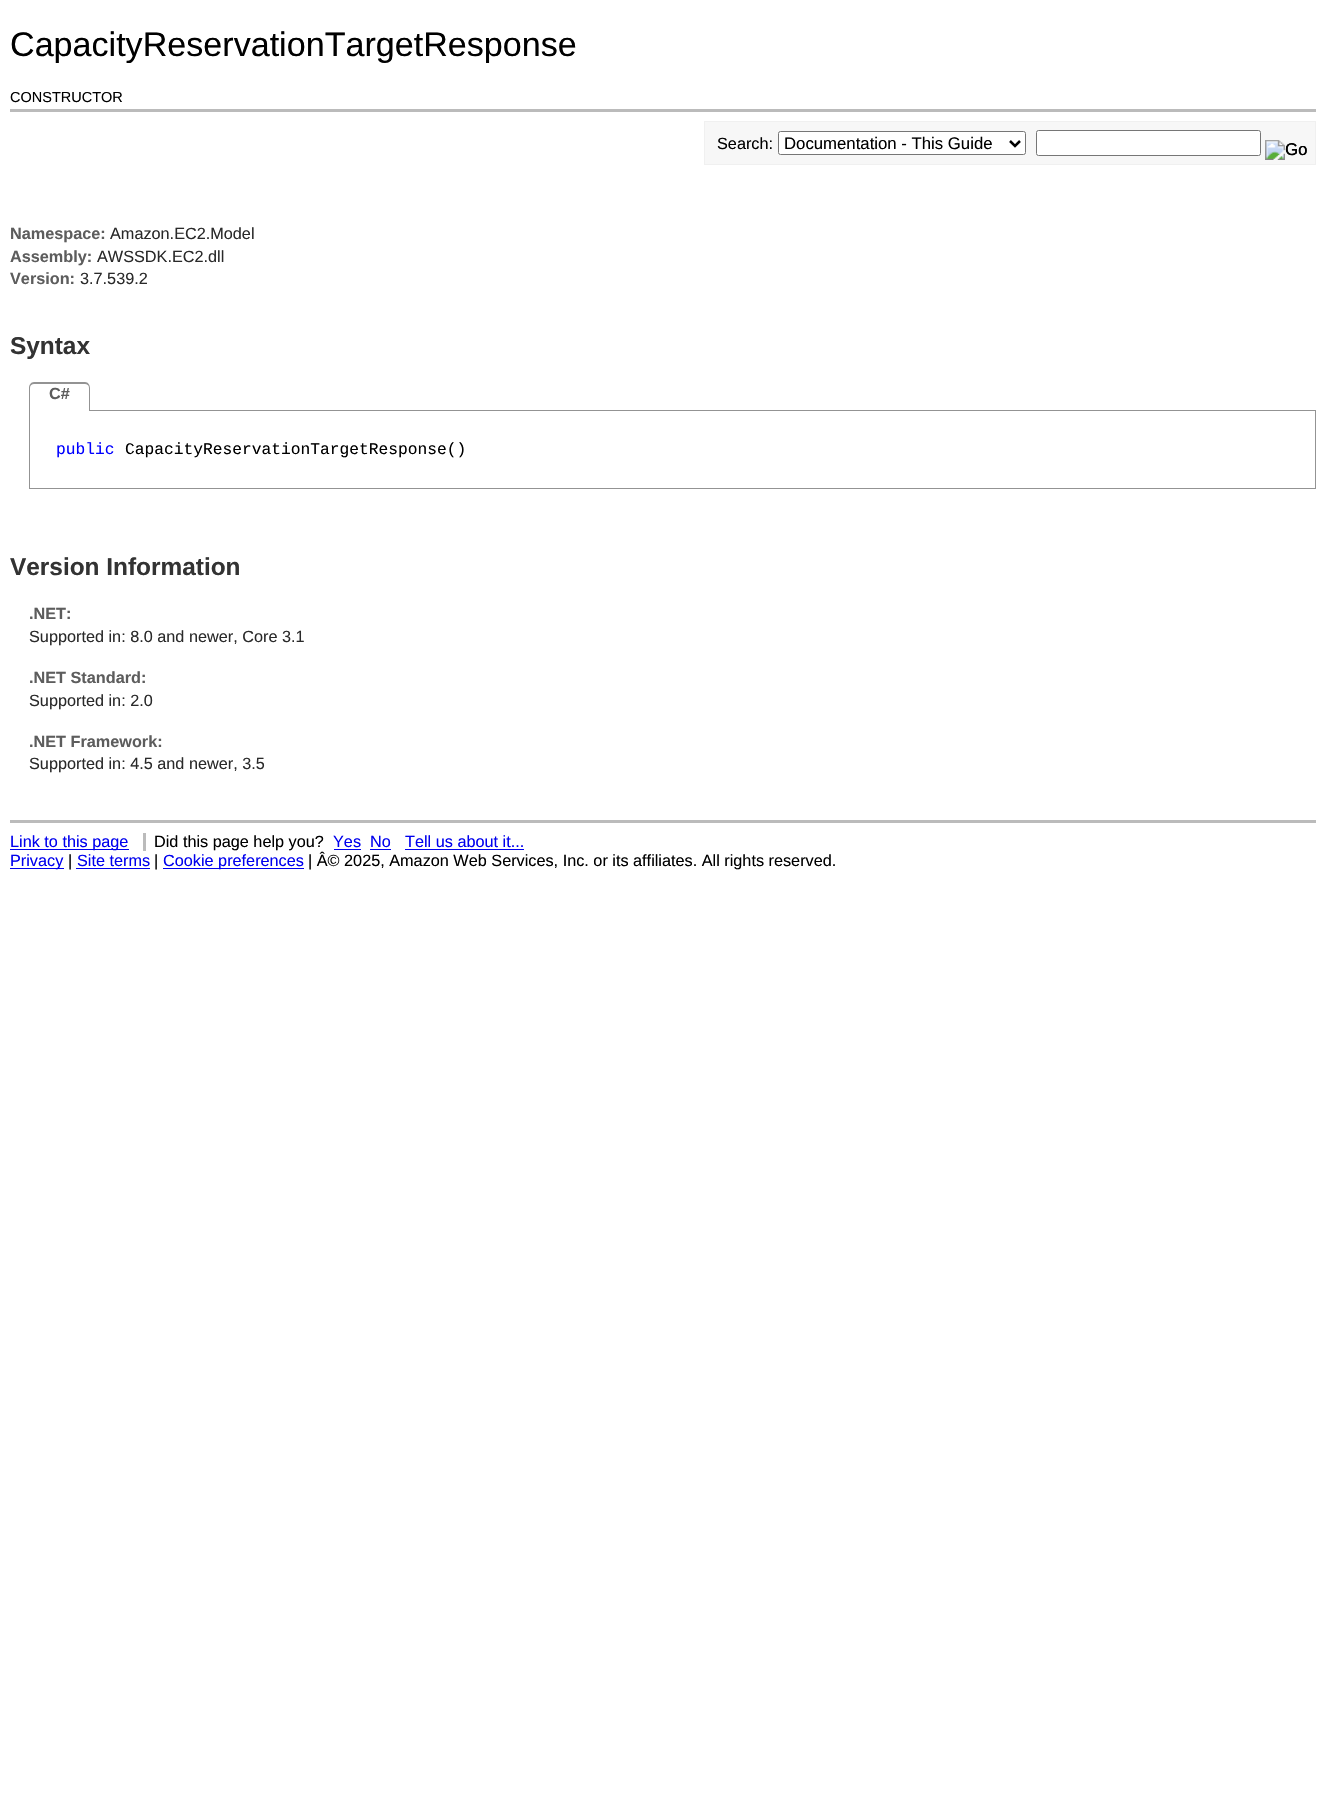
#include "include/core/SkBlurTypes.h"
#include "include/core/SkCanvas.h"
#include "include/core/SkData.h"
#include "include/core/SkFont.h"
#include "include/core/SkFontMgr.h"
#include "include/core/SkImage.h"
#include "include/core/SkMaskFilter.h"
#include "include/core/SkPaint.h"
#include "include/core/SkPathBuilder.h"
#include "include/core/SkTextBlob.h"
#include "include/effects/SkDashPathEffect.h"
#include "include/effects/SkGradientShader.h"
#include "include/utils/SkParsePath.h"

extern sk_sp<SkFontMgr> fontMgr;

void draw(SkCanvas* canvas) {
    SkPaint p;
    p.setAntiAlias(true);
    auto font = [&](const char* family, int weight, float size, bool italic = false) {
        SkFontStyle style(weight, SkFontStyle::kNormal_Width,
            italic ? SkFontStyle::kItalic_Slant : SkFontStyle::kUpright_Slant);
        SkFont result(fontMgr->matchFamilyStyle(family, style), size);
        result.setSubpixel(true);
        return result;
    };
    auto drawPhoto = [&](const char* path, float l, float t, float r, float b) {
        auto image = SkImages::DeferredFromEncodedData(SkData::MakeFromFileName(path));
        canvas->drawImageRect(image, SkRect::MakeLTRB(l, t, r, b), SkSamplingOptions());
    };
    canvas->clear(0xFFFFFFFF);
    p.setColor(0xFFBBBBBB);
    canvas->drawRect(SkRect::MakeLTRB(10, 109, 1316, 112), p);
    auto font1 = font("Liberation Sans", 400, 34.1f);
    p.setColor(0xFF000000);
    canvas->drawString("CapacityReservationTargetResponse", 10, 56, font1, p);
    auto font2 = font("Liberation Sans", 400, 14.5f);
    canvas->drawString("CONSTRUCTOR", 10, 102, font2, p);
    p.setColor(0xFFF7F7F7);
    canvas->drawRect(SkRect::MakeLTRB(704.5f, 121.5f, 1315.5f, 164.5f), p);
    p.setStyle(SkPaint::kStroke_Style);
    p.setStrokeWidth(1);
    p.setColor(0xFFF0F0F0);
    canvas->drawRect(SkRect::MakeLTRB(704.5f, 121.5f, 1315.5f, 164.5f), p);
    auto font3 = font("Liberation Sans", 400, 16.25f);
    p.setStyle(SkPaint::kFill_Style);
    p.setColor(0xFF000000);
    canvas->drawString("Search:", 717, 149, font3, p);
    p.setColor(0xFFFFFFFF);
    canvas->drawRoundRect(SkRect::MakeLTRB(778.5f, 131.5f, 1025.5f, 154.5f), 2, 2, p);
    p.setStyle(SkPaint::kStroke_Style);
    p.setColor(0xFF767676);
    canvas->drawRoundRect(SkRect::MakeLTRB(778.5f, 131.5f, 1025.5f, 154.5f), 2, 2, p);
    p.setStrokeWidth(2.5f);
    p.setColor(0xFF000000);
    canvas->drawPath(SkPathBuilder().moveTo(1010, 141).lineTo(1015, 146).lineTo(1020, 141).detach(), p);
    auto font4 = font("Liberation Sans", 400, 16.75f);
    p.setStyle(SkPaint::kFill_Style);
    canvas->drawString("Documentation - This Guide", 784, 149, font4, p);
    p.setColor(0xFFFFFFFF);
    canvas->drawRoundRect(SkRect::MakeLTRB(1036.5f, 130.5f, 1260.5f, 155.5f), 2, 2, p);
    p.setStyle(SkPaint::kStroke_Style);
    p.setStrokeWidth(1);
    p.setColor(0xFF767676);
    canvas->drawRoundRect(SkRect::MakeLTRB(1036.5f, 130.5f, 1260.5f, 155.5f), 2, 2, p);
    drawPhoto("media/1.png", 1265, 140, 1307, 160);
    p.setStyle(SkPaint::kFill_Style);
    p.setColor(0xFF000000);
    canvas->drawString("Go", 1285, 155, font4, p);
    auto font5 = font("Liberation Sans", 700, 16.25f);
    p.setColor(0xFF5D5D5D);
    canvas->drawString("Namespace:", 10, 239, font5, p);
    p.setColor(0xFF2A2A2A);
    canvas->drawString("Amazon.EC2.Model", 110, 239, font3, p);
    p.setColor(0xFF5D5D5D);
    canvas->drawString("Assembly:", 10, 262, font5, p);
    p.setColor(0xFF2A2A2A);
    canvas->drawString("AWSSDK.EC2.dll", 97, 262, font3, p);
    p.setColor(0xFF5D5D5D);
    canvas->drawString("Version:", 10, 284, font5, p);
    p.setColor(0xFF2A2A2A);
    canvas->drawString("3.7.539.2", 80, 284, font3, p);
    auto font6 = font("Liberation Sans", 700, 24.4f);
    p.setColor(0xFF333333);
    canvas->drawString("Syntax", 10, 354, font6, p);
    p.setStyle(SkPaint::kStroke_Style);
    p.setColor(0xFF939393);
    canvas->drawRect(SkRect::MakeLTRB(29.5f, 410.5f, 1315.5f, 488.5f), p);
    p.setStyle(SkPaint::kFill_Style);
    p.setColor(0xFFFFFFFF);
    canvas->drawPath(SkPathBuilder().moveTo(34, 383).lineTo(85, 383).cubicTo(88, 383, 90, 385, 90, 388).lineTo(90, 411).lineTo(29, 411).lineTo(29, 388).cubicTo(29, 385, 31, 383, 34, 383).close().detach(), p);
    p.setColor(0xFF939393);
    canvas->drawPath(SkPathBuilder(SkPathFillType::kEvenOdd).moveTo(34, 382).lineTo(85, 382).cubicTo(88, 382, 90, 385, 90, 388).lineTo(90, 411).lineTo(29, 411).lineTo(29, 388).cubicTo(29, 385, 31, 382, 34, 382).close().moveTo(34, 384).lineTo(85, 384).cubicTo(87, 384, 89, 385, 89, 388).lineTo(89, 411).lineTo(30, 411).lineTo(30, 388).cubicTo(30, 385, 32, 384, 34, 384).close().detach(), p);
    p.setColor(0xFF5D5D5D);
    canvas->drawString("C#", 49, 399, font5, p);
    auto font7 = font("Liberation Mono", 400, 16.25f);
    p.setColor(0xFF0000FF);
    canvas->drawString("public", 56, 454, font7, p);
    p.setColor(0xFF000000);
    canvas->drawString("CapacityReservationTargetResponse()", 125, 454, font7, p);
    p.setColor(0xFF333333);
    canvas->drawString("Version Information", 10, 575, font6, p);
    p.setColor(0xFF5D5D5D);
    canvas->drawString(".NET:", 29, 619, font5, p);
    p.setColor(0xFF2A2A2A);
    canvas->drawString("Supported in: 8.0 and newer, Core 3.1", 29, 642, font3, p);
    p.setColor(0xFF5D5D5D);
    canvas->drawString(".NET Standard:", 29, 683, font5, p);
    p.setColor(0xFF2A2A2A);
    canvas->drawString("Supported in: 2.0", 29, 706, font3, p);
    p.setColor(0xFF5D5D5D);
    canvas->drawString(".NET Framework:", 29, 747, font5, p);
    p.setColor(0xFF2A2A2A);
    canvas->drawString("Supported in: 4.5 and newer, 3.5", 29, 769, font3, p);
    p.setColor(0xFFBBBBBB);
    canvas->drawRect(SkRect::MakeLTRB(10, 820, 1316, 823), p);
    p.setColor(0xFF0000EE);
    canvas->drawRect(SkRect::MakeLTRB(10, 849, 129, 850), p);
    canvas->drawString("Link to this page", 10, 847, font3, p);
    p.setColor(0xFFBBBBBB);
    canvas->drawRect(SkRect::MakeLTRB(143, 833, 146, 851), p);
    p.setColor(0xFF000000);
    canvas->drawString("Did this page help you?", 154, 847, font3, p);
    p.setColor(0xFF0000EE);
    canvas->drawString("Yes", 333, 847, font3, p);
    canvas->drawRect(SkRect::MakeLTRB(334, 849, 361, 850), p);
    canvas->drawString("No", 370, 847, font3, p);
    canvas->drawRect(SkRect::MakeLTRB(370, 849, 391, 850), p);
    canvas->drawString("Tell us about it...", 405, 847, font3, p);
    canvas->drawRect(SkRect::MakeLTRB(405, 849, 524, 850), p);
    canvas->drawRect(SkRect::MakeLTRB(10, 868, 64, 869), p);
    canvas->drawString("Privacy", 10, 866, font3, p);
    p.setColor(0xFF000000);
    canvas->drawString("|", 68, 866, font3, p);
    p.setColor(0xFF0000EE);
    canvas->drawString("Site terms", 77, 866, font3, p);
    canvas->drawRect(SkRect::MakeLTRB(76, 868, 150, 869), p);
    p.setColor(0xFF000000);
    canvas->drawString("|", 154, 866, font3, p);
    p.setColor(0xFF0000EE);
    canvas->drawRect(SkRect::MakeLTRB(163, 868, 304, 869), p);
    canvas->drawString("Cookie preferences", 163, 866, font3, p);
    p.setColor(0xFF000000);
    canvas->drawString("| Â© 2025, Amazon Web Services, Inc. or its affiliates. All rights reserved.", 308, 866, font3, p);
}
